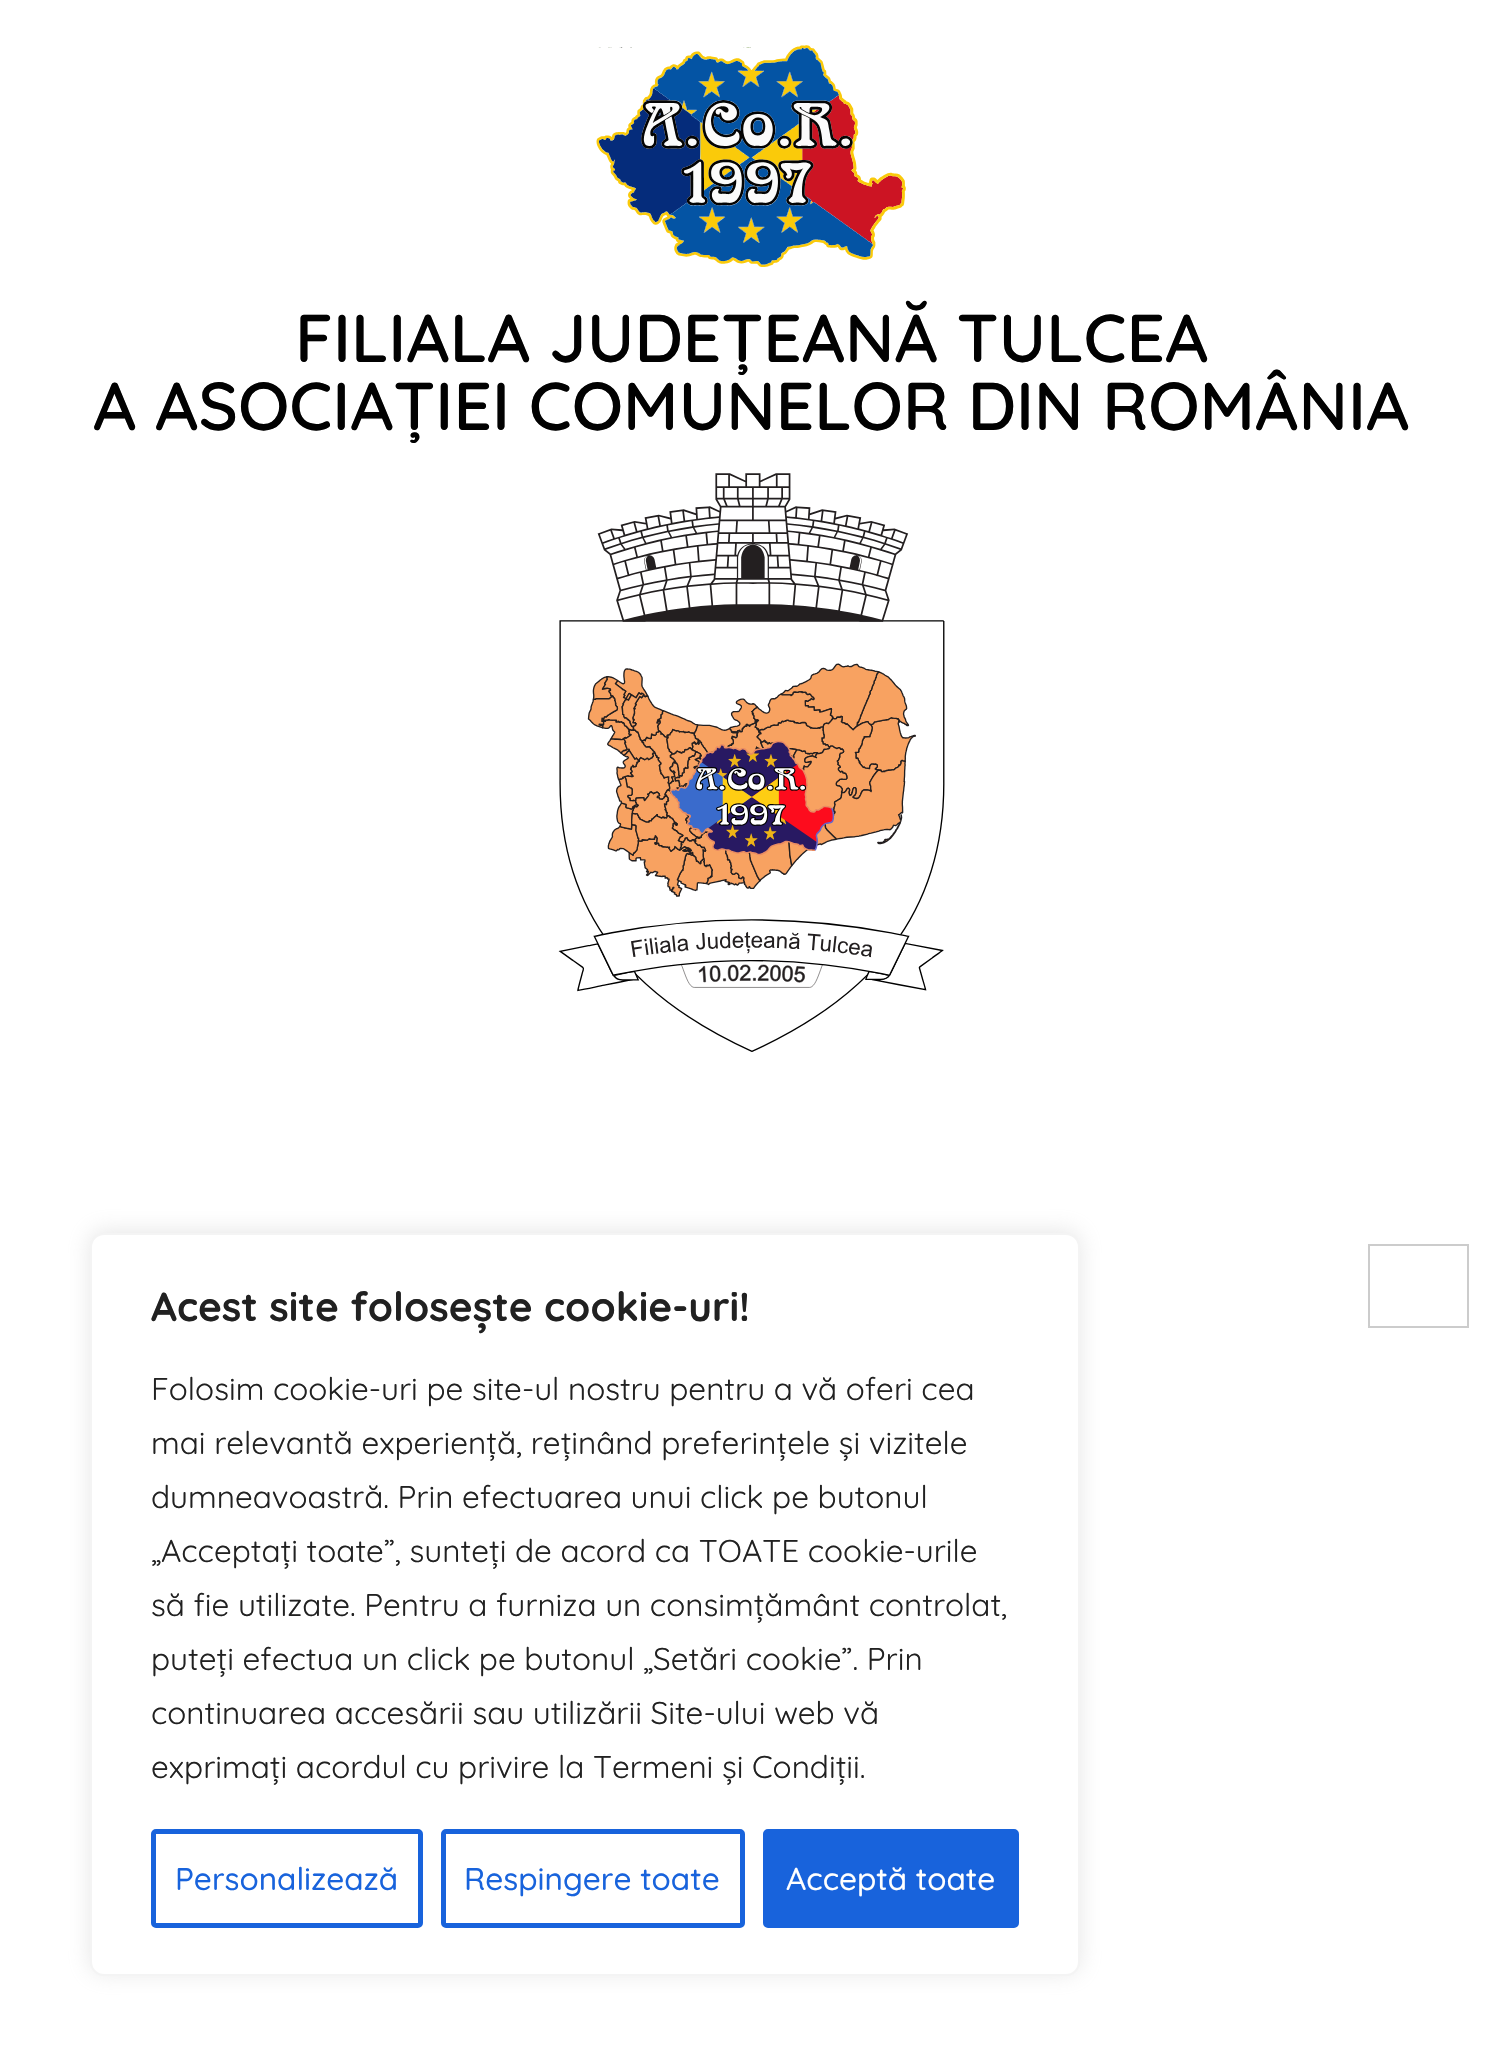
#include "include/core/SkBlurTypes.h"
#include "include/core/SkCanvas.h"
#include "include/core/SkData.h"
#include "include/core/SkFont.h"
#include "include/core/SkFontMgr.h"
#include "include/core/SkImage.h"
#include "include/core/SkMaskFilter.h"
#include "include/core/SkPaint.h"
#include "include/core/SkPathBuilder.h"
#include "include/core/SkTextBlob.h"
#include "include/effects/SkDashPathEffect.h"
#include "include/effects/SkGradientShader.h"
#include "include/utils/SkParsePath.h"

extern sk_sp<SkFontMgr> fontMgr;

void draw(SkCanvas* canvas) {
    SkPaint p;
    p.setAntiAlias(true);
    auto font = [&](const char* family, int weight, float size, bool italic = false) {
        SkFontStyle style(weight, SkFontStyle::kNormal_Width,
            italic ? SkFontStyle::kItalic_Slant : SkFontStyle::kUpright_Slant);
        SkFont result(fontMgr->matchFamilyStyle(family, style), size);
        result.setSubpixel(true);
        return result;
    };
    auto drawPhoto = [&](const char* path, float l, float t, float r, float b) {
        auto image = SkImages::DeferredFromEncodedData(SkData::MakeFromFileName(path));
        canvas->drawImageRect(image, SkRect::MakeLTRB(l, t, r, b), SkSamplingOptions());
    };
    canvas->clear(0xFFFFFFFF);
    drawPhoto("media/1.png", 596, 45, 906, 267);
    auto font1 = font("Quicksand", 600, 67.5f);
    p.setColor(0xFF010101);
    canvas->drawString("FILIALA JUDEȚEANĂ TULCEA", 295, 362, font1, p);
    canvas->drawString("A ASOCIAȚIEI COMUNELOR DIN ROMÂNIA", 93, 430, font1, p);
    drawPhoto("media/2.png", 558, 473, 945, 1052);
    p.setStyle(SkPaint::kStroke_Style);
    p.setStrokeWidth(2);
    p.setColor(0xFFCCCCCC);
    canvas->drawRect(SkRect::MakeLTRB(1369, 1245, 1468, 1327), p);
    p.setStyle(SkPaint::kFill_Style);
    p.setColor(0x4DACABAB);
    p.setMaskFilter(SkMaskFilter::MakeBlur(kNormal_SkBlurStyle, 11));
    canvas->drawRoundRect(SkRect::MakeLTRB(90, 1231, 1080, 1973), 14, 14, p);
    p.setMaskFilter(nullptr);
    p.setColor(0xFFFFFFFF);
    canvas->drawRoundRect(SkRect::MakeLTRB(91, 1234, 1079, 1975), 13, 13, p);
    p.setStyle(SkPaint::kStroke_Style);
    p.setColor(0xFFF4F4F4);
    canvas->drawRoundRect(SkRect::MakeLTRB(91, 1234, 1079, 1975), 13, 13, p);
    auto font2 = font("Quicksand", 700, 40.5f);
    p.setStyle(SkPaint::kFill_Style);
    p.setColor(0xFF212121);
    canvas->drawString("Acest site folosește cookie-uri!", 151, 1321, font2, p);
    auto font3 = font("Quicksand", 400, 31.5f);
    {
        const struct { const char* s; float x, y; } items[] = {
            {"Folosim cookie-uri pe site-ul nostru pentru a vă oferi cea", 151, 1400},
            {"mai relevantă experiență, reținând preferințele și vizitele", 151, 1454},
            {"dumneavoastră. Prin efectuarea unui click pe butonul", 151, 1508},
            {"„Acceptați toate”, sunteți de acord ca TOATE cookie-urile", 151, 1562},
            {"să fie utilizate. Pentru a furniza un consimțământ controlat,", 151, 1616},
            {"puteți efectua un click pe butonul „Setări cookie”. Prin", 151, 1670},
            {"continuarea accesării sau utilizării Site-ului web vă", 151, 1724},
            {"exprimați acordul cu privire la Termeni și Condiții.", 151, 1778},
        };
        for (auto [s, x, y] : items) {
            canvas->drawString(s, x, y, font3, p);
        }
    }
    p.setStyle(SkPaint::kStroke_Style);
    p.setStrokeWidth(5);
    p.setColor(0xFF1863DC);
    canvas->drawRoundRect(SkRect::MakeLTRB(153.5f, 1831.5f, 420.5f, 1925.5f), 2.5f, 2.5f, p);
    auto font4 = font("Quicksand", 500, 31.5f);
    p.setStyle(SkPaint::kFill_Style);
    canvas->drawString("Personalizează", 175, 1890, font4, p);
    p.setStyle(SkPaint::kStroke_Style);
    canvas->drawRoundRect(SkRect::MakeLTRB(443.5f, 1831.5f, 742.5f, 1925.5f), 2.5f, 2.5f, p);
    p.setStyle(SkPaint::kFill_Style);
    canvas->drawString("Respingere toate", 464, 1890, font4, p);
    canvas->drawRoundRect(SkRect::MakeLTRB(765.5f, 1831.5f, 1016.5f, 1925.5f), 2.5f, 2.5f, p);
    p.setStyle(SkPaint::kStroke_Style);
    canvas->drawRoundRect(SkRect::MakeLTRB(765.5f, 1831.5f, 1016.5f, 1925.5f), 2.5f, 2.5f, p);
    p.setStyle(SkPaint::kFill_Style);
    p.setColor(0xFFFFFFFF);
    canvas->drawString("Acceptă toate", 786, 1890, font4, p);
}
